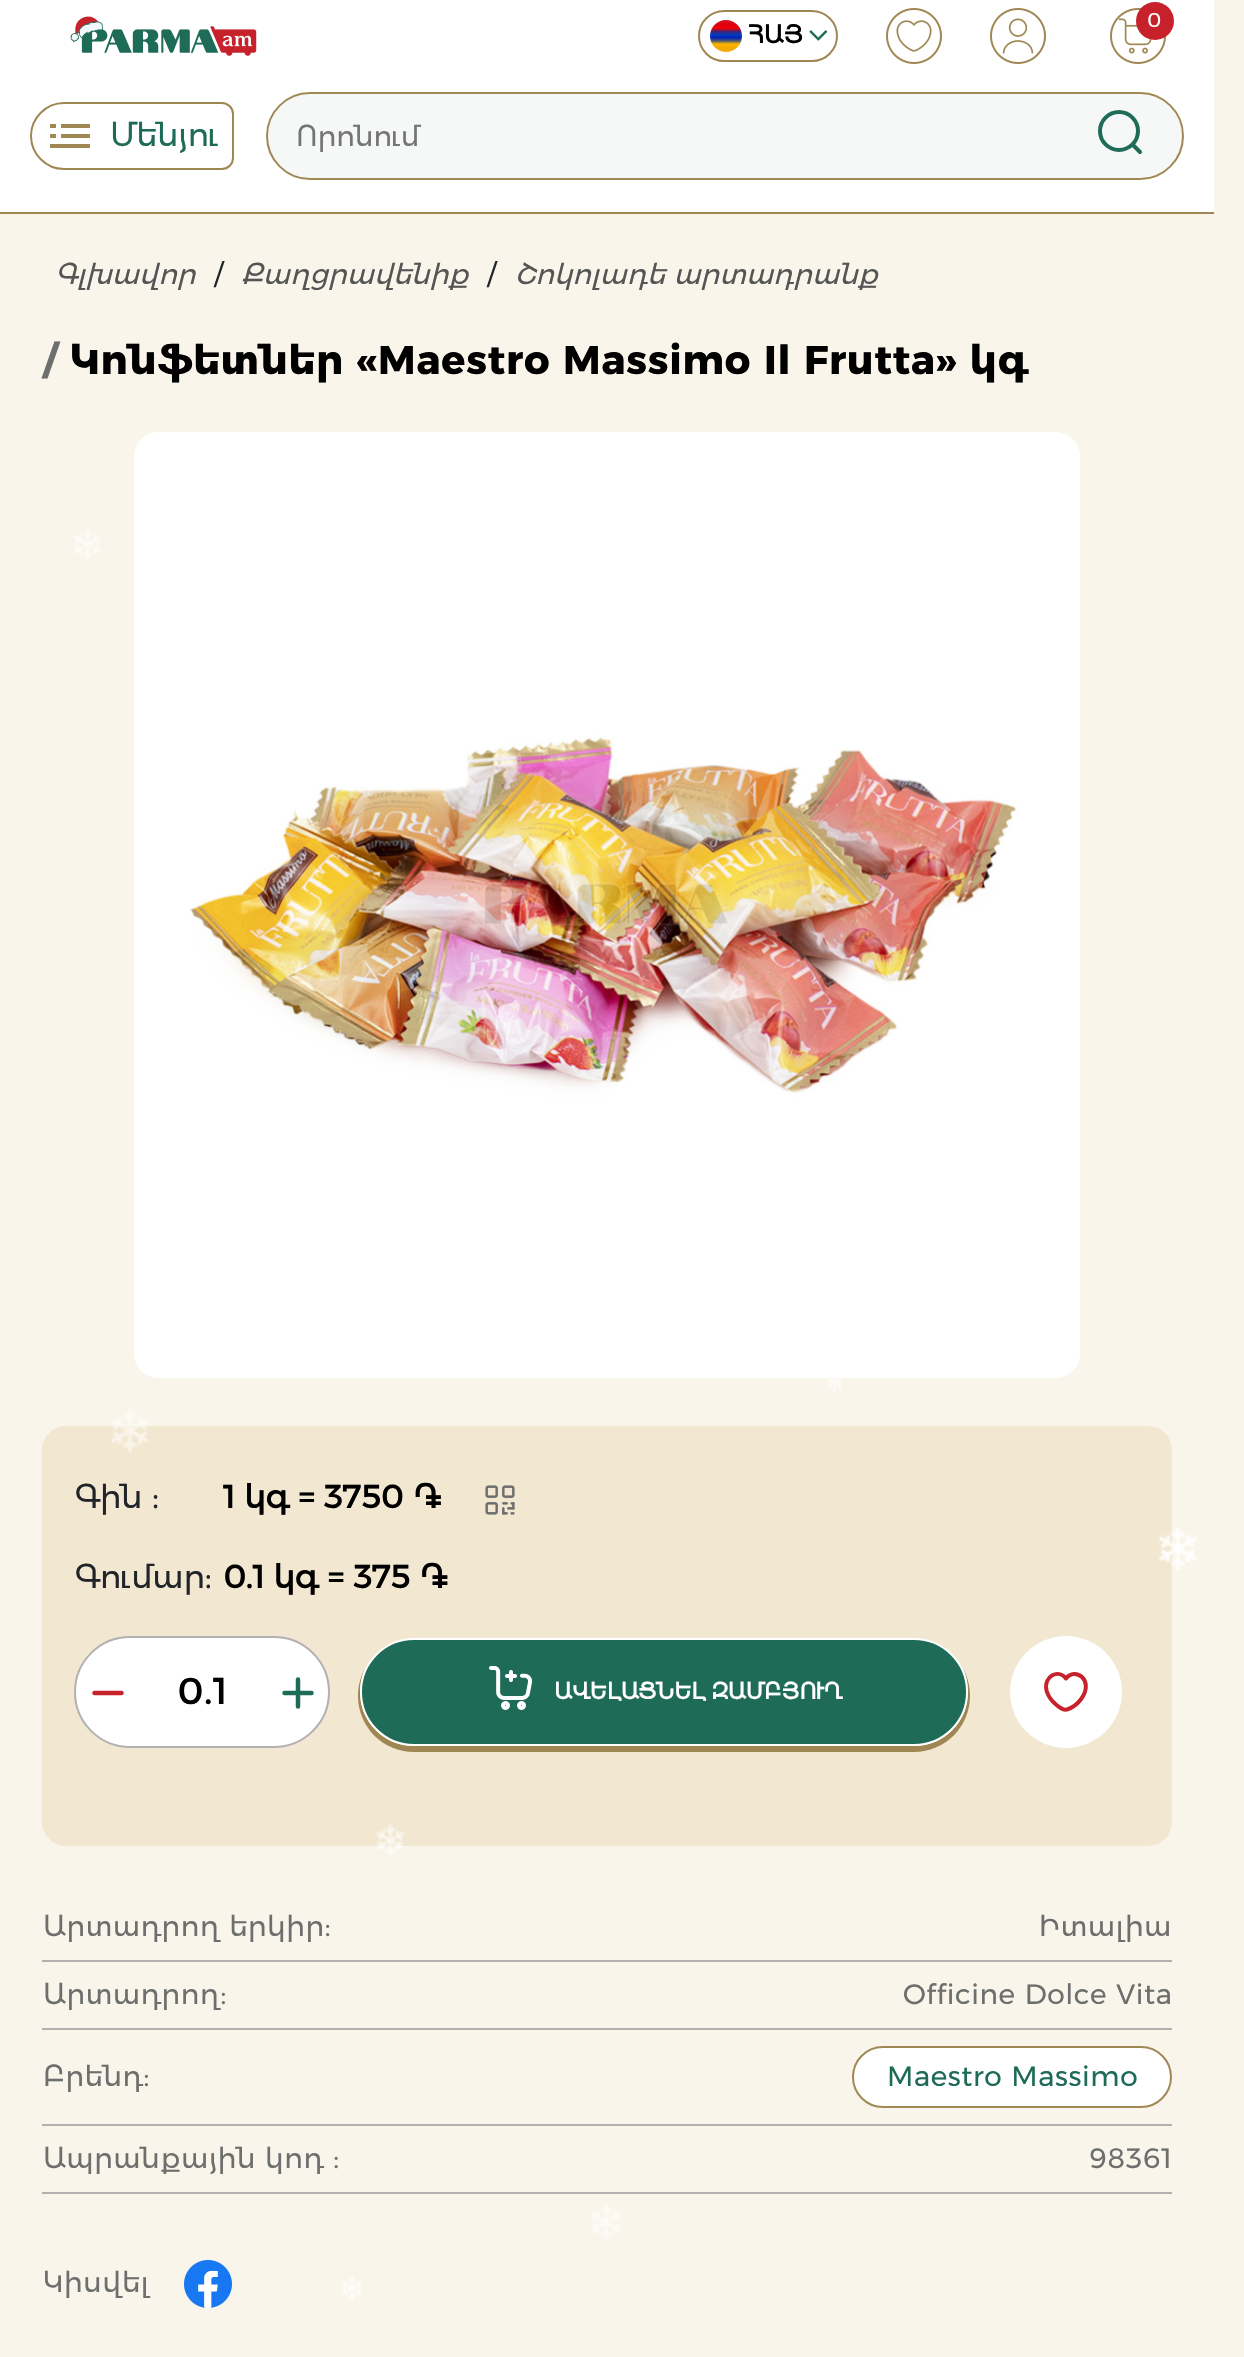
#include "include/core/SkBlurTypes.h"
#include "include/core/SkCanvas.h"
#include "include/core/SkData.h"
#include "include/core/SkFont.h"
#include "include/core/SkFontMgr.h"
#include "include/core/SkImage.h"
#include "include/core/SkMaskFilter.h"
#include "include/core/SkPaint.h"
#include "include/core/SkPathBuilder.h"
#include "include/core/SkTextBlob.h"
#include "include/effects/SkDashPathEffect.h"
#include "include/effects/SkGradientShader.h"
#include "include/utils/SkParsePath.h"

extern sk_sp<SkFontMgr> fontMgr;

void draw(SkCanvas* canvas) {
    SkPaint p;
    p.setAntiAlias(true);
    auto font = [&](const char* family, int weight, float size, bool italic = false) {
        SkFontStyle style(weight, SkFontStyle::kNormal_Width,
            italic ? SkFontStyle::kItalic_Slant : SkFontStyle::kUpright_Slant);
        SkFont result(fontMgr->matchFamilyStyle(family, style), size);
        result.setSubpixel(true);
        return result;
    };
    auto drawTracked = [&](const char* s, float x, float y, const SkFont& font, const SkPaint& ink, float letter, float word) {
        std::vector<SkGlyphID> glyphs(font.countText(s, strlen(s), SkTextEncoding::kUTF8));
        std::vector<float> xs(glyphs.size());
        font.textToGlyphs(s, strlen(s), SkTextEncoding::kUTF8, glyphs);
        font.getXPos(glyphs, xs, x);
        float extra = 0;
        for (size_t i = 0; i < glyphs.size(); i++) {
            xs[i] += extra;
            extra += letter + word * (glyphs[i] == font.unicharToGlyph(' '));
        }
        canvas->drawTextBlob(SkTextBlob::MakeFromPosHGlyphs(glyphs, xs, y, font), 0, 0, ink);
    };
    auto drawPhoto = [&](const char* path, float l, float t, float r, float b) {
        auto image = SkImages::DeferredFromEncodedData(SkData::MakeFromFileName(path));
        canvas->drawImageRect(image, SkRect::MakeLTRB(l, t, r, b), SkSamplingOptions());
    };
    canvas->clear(0xFFFAF5EA);
    p.setColor(0xFFFFFFFF);
    canvas->drawRect(SkRect::MakeLTRB(0, 0, 1214, 212), p);
    p.setColor(0xFF9F8754);
    canvas->drawRect(SkRect::MakeLTRB(0, 212, 1214, 214), p);
    drawPhoto("media/1.png", 70, 16, 257, 56);
    drawPhoto("media/2.png", 886, 8, 942, 64);
    drawPhoto("media/3.png", 990, 8, 1046, 64);
    drawPhoto("media/4.png", 1110, 8, 1166, 64);
    p.setColor(0xFFC7212B);
    canvas->drawCircle(1155, 21, 19, p);
    auto font1 = font("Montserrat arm", 400, 20);
    p.setColor(0xFFFFFFFF);
    canvas->drawString("0", 1147, 27, font1, p);
    p.setStyle(SkPaint::kStroke_Style);
    p.setStrokeWidth(2);
    p.setColor(0xFFA08854);
    canvas->drawRoundRect(SkRect::MakeLTRB(699, 11, 837, 61), 25, 25, p);
    drawPhoto("media/5.png", 710, 20, 742, 52);
    auto font2 = font("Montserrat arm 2", 700, 24);
    p.setStyle(SkPaint::kFill_Style);
    p.setColor(0xFF000000);
    canvas->drawString("ՀԱՅ", 747, 43, font2, p);
    drawPhoto("media/6.png", 809, 30, 828, 41);
    p.setStyle(SkPaint::kStroke_Style);
    p.setColor(0xFF9F8754);
    canvas->drawPath(SkPathBuilder().moveTo(64, 103).lineTo(222, 103).cubicTo(228, 103, 233, 108, 233, 114).lineTo(233, 158).cubicTo(233, 164, 228, 169, 222, 169).lineTo(64, 169).cubicTo(46, 169, 31, 154, 31, 136).cubicTo(31, 118, 46, 103, 64, 103).close().detach(), p);
    drawPhoto("media/7.png", 50, 124, 90, 148);
    auto font3 = font("Montserrat arm", 400, 32);
    p.setStyle(SkPaint::kFill_Style);
    p.setColor(0xFF1E6B57);
    canvas->drawString("Մենյու", 110, 146, font3, p);
    p.setColor(0xFFF6F8F8);
    canvas->drawRoundRect(SkRect::MakeLTRB(267, 93, 1183, 179), 43, 43, p);
    p.setStyle(SkPaint::kStroke_Style);
    p.setColor(0xFFA08854);
    canvas->drawRoundRect(SkRect::MakeLTRB(267, 93, 1183, 179), 43, 43, p);
    auto font4 = font("Montserrat arm", 400, 28);
    p.setStyle(SkPaint::kFill_Style);
    p.setColor(0xFF757575);
    canvas->drawString("Որոնում", 296, 146, font4, p);
    p.setStyle(SkPaint::kStroke_Style);
    p.setStrokeWidth(4);
    p.setStrokeCap(SkPaint::kRound_Cap);
    p.setStrokeJoin(SkPaint::kRound_Join);
    p.setColor(0xFF1E6C57);
    canvas->drawPath(SkPathBuilder().moveTo(1119, 150).cubicTo(1129.5f, 150, 1138, 141.5f, 1138, 131).cubicTo(1138, 120.5f, 1129.5f, 112, 1119, 112).cubicTo(1108.5f, 112, 1100, 120.5f, 1100, 131).cubicTo(1100, 141.5f, 1108.5f, 150, 1119, 150).close().moveTo(1140, 152).lineTo(1133, 145).detach(), p);
    auto font5 = font("Montserrat arm", 400, 28, true);
    p.setStyle(SkPaint::kFill_Style);
    p.setColor(0xFF555555);
    canvas->drawString("Գլխավոր", 55, 284, font5, p);
    p.setColor(0xFF212529);
    canvas->drawString("/", 214, 284, font4, p);
    p.setColor(0xFF555555);
    canvas->drawString("Քաղցրավենիք", 241, 284, font5, p);
    p.setColor(0xFF212529);
    canvas->drawString("/", 487, 284, font4, p);
    p.setColor(0xFF555555);
    canvas->drawString("Շոկոլադե արտադրանք", 515, 284, font5, p);
    auto font6 = font("Montserrat arm", 700, 40);
    p.setColor(0xFF6D6F6E);
    drawTracked("/", 43, 374, font6, p, 0.8f, 0);
    p.setColor(0xFF000000);
    drawTracked("Կոնֆետներ «Maestro Massimo Il Frutta» կգ", 70, 374, font6, p, 0.8f, 0);
    drawPhoto("media/8.png", 134, 432, 1080, 1378);
    p.setColor(0xFFF2E7D0);
    canvas->drawRoundRect(SkRect::MakeLTRB(42, 1426, 1172, 1846), 24, 24, p);
    p.setColor(0xFF212529);
    canvas->drawString("Գին :", 75, 1508, font3, p);
    auto font7 = font("Montserrat arm 2", 700, 32);
    p.setColor(0xFF000000);
    canvas->drawString("1 կգ = 3750 ֏", 223, 1508, font7, p);
    drawPhoto("media/9.png", 485, 1485, 515, 1515);
    p.setColor(0xFF212529);
    canvas->drawString("Գումար:", 75, 1588, font3, p);
    p.setColor(0xFF000000);
    canvas->drawString("0.1 կգ = 375 ֏", 223, 1588, font7, p);
    p.setColor(0xFFFFFFFF);
    canvas->drawRoundRect(SkRect::MakeLTRB(75, 1637, 329, 1747), 55, 55, p);
    p.setStyle(SkPaint::kStroke_Style);
    p.setStrokeWidth(2);
    p.setStrokeCap(SkPaint::kButt_Cap);
    p.setStrokeJoin(SkPaint::kMiter_Join);
    p.setColor(0xFFB2B0B1);
    canvas->drawRoundRect(SkRect::MakeLTRB(75, 1637, 329, 1747), 55, 55, p);
    p.setStrokeWidth(4.5f);
    p.setStrokeCap(SkPaint::kRound_Cap);
    p.setStrokeJoin(SkPaint::kRound_Join);
    p.setColor(0xFFC7212B);
    canvas->drawPath(SkPathBuilder().moveTo(121.5f, 1693).lineTo(94.5f, 1693).detach(), p);
    auto font8 = font("Montserrat arm 2", 700, 36);
    p.setStyle(SkPaint::kFill_Style);
    p.setColor(0xFF000000);
    drawTracked("0.1", 177, 1704, font8, p, 1.5f, 0);
    p.setStyle(SkPaint::kStroke_Style);
    p.setColor(0xFF1E6C57);
    canvas->drawPath(SkPathBuilder().moveTo(298, 1679.5f).lineTo(298, 1706.5f).moveTo(311.5f, 1693).lineTo(284.5f, 1693).detach(), p);
    p.setStyle(SkPaint::kFill_Style);
    p.setColor(0xFF9F8754);
    canvas->drawPath(SkPathBuilder().moveTo(366, 1667).cubicTo(361, 1675, 358, 1685, 358, 1696).cubicTo(358, 1727, 383, 1752, 414, 1752).lineTo(914, 1752).cubicTo(945, 1752, 970, 1727, 970, 1696).cubicTo(970, 1685, 967, 1675, 962, 1667).cubicTo(966, 1674, 968, 1683, 968, 1692).cubicTo(968, 1722, 944, 1746, 914, 1746).lineTo(414, 1746).cubicTo(384, 1746, 360, 1722, 360, 1692).cubicTo(360, 1683, 362, 1674, 366, 1667).close().detach(), p);
    p.setColor(0xFF1E6B57);
    canvas->drawRoundRect(SkRect::MakeLTRB(361, 1639, 967, 1745), 53, 53, p);
    p.setStyle(SkPaint::kStroke_Style);
    p.setStrokeWidth(2);
    p.setStrokeCap(SkPaint::kButt_Cap);
    p.setStrokeJoin(SkPaint::kMiter_Join);
    p.setColor(0xFFFFFFFF);
    canvas->drawRoundRect(SkRect::MakeLTRB(361, 1639, 967, 1745), 53, 53, p);
    drawPhoto("media/10.png", 489, 1666, 533, 1710);
    auto font9 = font("Montserrat arm 2", 700, 22);
    p.setStyle(SkPaint::kFill_Style);
    canvas->drawString("ԱՎԵԼԱՑՆԵԼ ԶԱՄԲՅՈՒՂ", 554, 1699, font9, p);
    canvas->drawCircle(1066, 1692, 56, p);
    p.setStyle(SkPaint::kStroke_Style);
    p.setStrokeWidth(4);
    p.setStrokeCap(SkPaint::kRound_Cap);
    p.setStrokeJoin(SkPaint::kRound_Join);
    p.setColor(0xFFC7212B);
    canvas->drawPath(SkPathBuilder().moveTo(1067, 1709.5f).cubicTo(1063.5f, 1711, 1058.5f, 1706.5f, 1056.5f, 1705).cubicTo(1051.5f, 1701, 1048, 1696, 1046.5f, 1690.5f).cubicTo(1043.5f, 1676, 1058.5f, 1668.5f, 1066, 1678.5f).cubicTo(1075, 1666.5f, 1094.5f, 1680, 1081.5f, 1698.5f).cubicTo(1078, 1703.5f, 1073, 1707.5f, 1067, 1709.5f).close().detach(), p);
    p.setStyle(SkPaint::kFill_Style);
    p.setColor(0xFFB2B0B1);
    canvas->drawRect(SkRect::MakeLTRB(42, 1960, 1172, 1962), p);
    p.setColor(0xFF6D6F6E);
    drawTracked("Արտադրող երկիր:", 43, 1936, font4, p, 0.6f, 0);
    drawTracked("Իտալիա", 1039, 1936, font4, p, 0.6f, 0);
    p.setColor(0xFFB2B0B1);
    canvas->drawRect(SkRect::MakeLTRB(42, 2028, 1172, 2030), p);
    p.setColor(0xFF6D6F6E);
    drawTracked("Արտադրող:", 43, 2004, font4, p, 0.6f, 0);
    drawTracked("Officine Dolce Vita", 903, 2004, font4, p, 0.6f, 0);
    p.setColor(0xFFB2B0B1);
    canvas->drawRect(SkRect::MakeLTRB(42, 2124, 1172, 2126), p);
    p.setColor(0xFF6D6F6E);
    drawTracked("Բրենդ:", 43, 2086, font4, p, 0.6f, 0);
    p.setColor(0xFFFFFFFF);
    canvas->drawRoundRect(SkRect::MakeLTRB(853, 2047, 1171, 2107), 30, 30, p);
    p.setStyle(SkPaint::kStroke_Style);
    p.setStrokeWidth(2);
    p.setStrokeCap(SkPaint::kButt_Cap);
    p.setStrokeJoin(SkPaint::kMiter_Join);
    p.setColor(0xFFA08854);
    canvas->drawRoundRect(SkRect::MakeLTRB(853, 2047, 1171, 2107), 30, 30, p);
    p.setStyle(SkPaint::kFill_Style);
    p.setColor(0xFF1E6B57);
    drawTracked("Maestro Massimo", 887, 2086, font4, p, 0.6f, 0);
    p.setColor(0xFFB2B0B1);
    canvas->drawRect(SkRect::MakeLTRB(42, 2192, 1172, 2194), p);
    p.setColor(0xFF6D6F6E);
    {
        const struct { const char* s; float x, y; } items[] = {
            {"Ապրանքային կոդ :", 43, 2168},
            {"98361", 1089, 2168},
            {"Կիսվել", 43, 2292},
        };
        for (auto [s, x, y] : items) {
            drawTracked(s, x, y, font4, p, 0.6f, 0);
        }
    }
    drawPhoto("media/11.png", 184, 2260, 232, 2308);
    drawPhoto("media/12.png", 74, 528, 1197, 2300);
}
